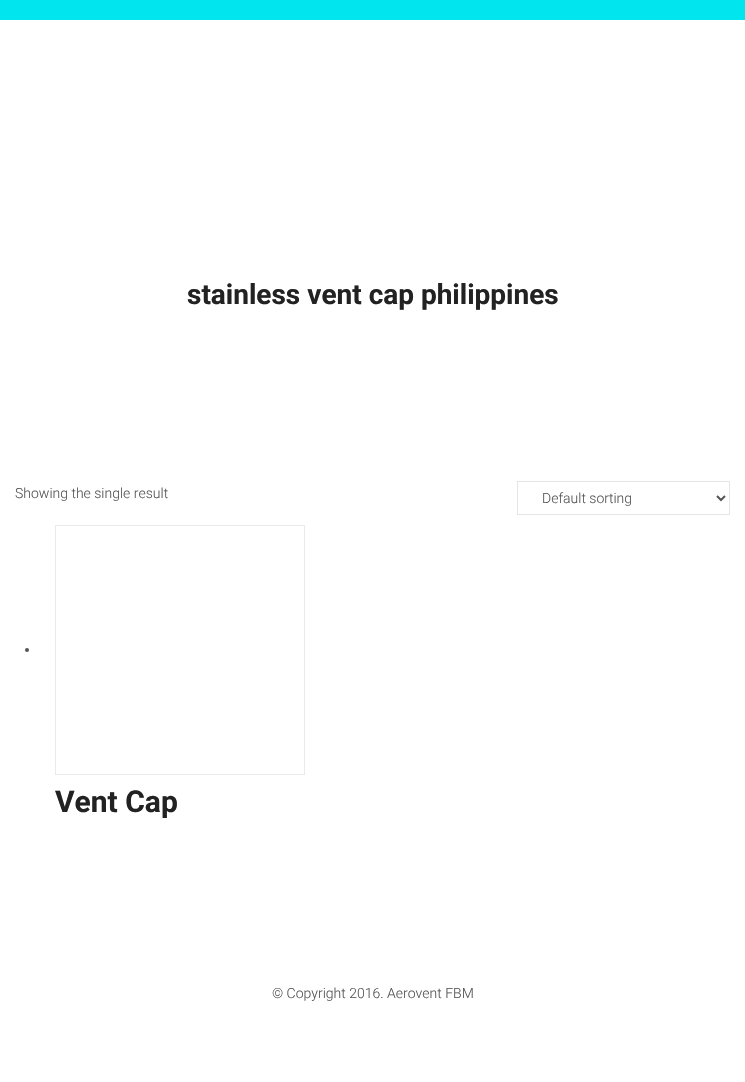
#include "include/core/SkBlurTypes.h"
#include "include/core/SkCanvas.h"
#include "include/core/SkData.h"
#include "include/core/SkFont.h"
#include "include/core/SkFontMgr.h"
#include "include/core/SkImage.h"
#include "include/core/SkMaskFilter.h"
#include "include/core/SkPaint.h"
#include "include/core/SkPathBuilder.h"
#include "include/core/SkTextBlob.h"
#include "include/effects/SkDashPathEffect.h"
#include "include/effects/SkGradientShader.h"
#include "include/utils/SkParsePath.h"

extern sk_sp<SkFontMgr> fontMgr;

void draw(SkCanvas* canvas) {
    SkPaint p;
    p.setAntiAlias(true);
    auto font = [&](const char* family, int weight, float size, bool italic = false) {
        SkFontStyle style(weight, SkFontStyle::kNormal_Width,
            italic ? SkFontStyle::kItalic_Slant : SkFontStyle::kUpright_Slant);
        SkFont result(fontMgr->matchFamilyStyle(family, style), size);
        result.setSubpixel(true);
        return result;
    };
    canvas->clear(0xFFFFFFFF);
    p.setColor(0xFF00E5EE);
    canvas->drawRect(SkRect::MakeLTRB(0, 0, 745, 20), p);
    auto font1 = font("Roboto", 700, 28);
    p.setColor(0xFF222222);
    canvas->drawString("stainless vent cap philippines", 187, 304, font1, p);
    auto font2 = font("Roboto", 300, 14);
    p.setColor(0xFF555555);
    canvas->drawString("Showing the single result", 15, 498, font2, p);
    p.setStyle(SkPaint::kStroke_Style);
    p.setStrokeWidth(1);
    p.setColor(0xFFE2E6E7);
    canvas->drawRect(SkRect::MakeLTRB(517.5f, 481.5f, 729.5f, 514.5f), p);
    p.setStrokeWidth(2);
    p.setColor(0xFF555555);
    canvas->drawPath(SkPathBuilder().moveTo(717, 496).lineTo(721, 500).lineTo(725, 496).detach(), p);
    p.setStyle(SkPaint::kFill_Style);
    canvas->drawString("Default sorting", 542, 503, font2, p);
    canvas->drawCircle(27, 650, 2, p);
    p.setStyle(SkPaint::kStroke_Style);
    p.setStrokeWidth(1);
    p.setColor(0xFFEAEAEA);
    canvas->drawRect(SkRect::MakeLTRB(55.5f, 525.5f, 304.5f, 774.5f), p);
    auto font3 = font("Roboto", 700, 30);
    p.setStyle(SkPaint::kFill_Style);
    p.setColor(0xFF222222);
    canvas->drawString("Vent Cap", 55, 812, font3, p);
    p.setColor(0xFF555555);
    canvas->drawString("© Copyright 2016. Aerovent FBM", 272, 998, font2, p);
}
